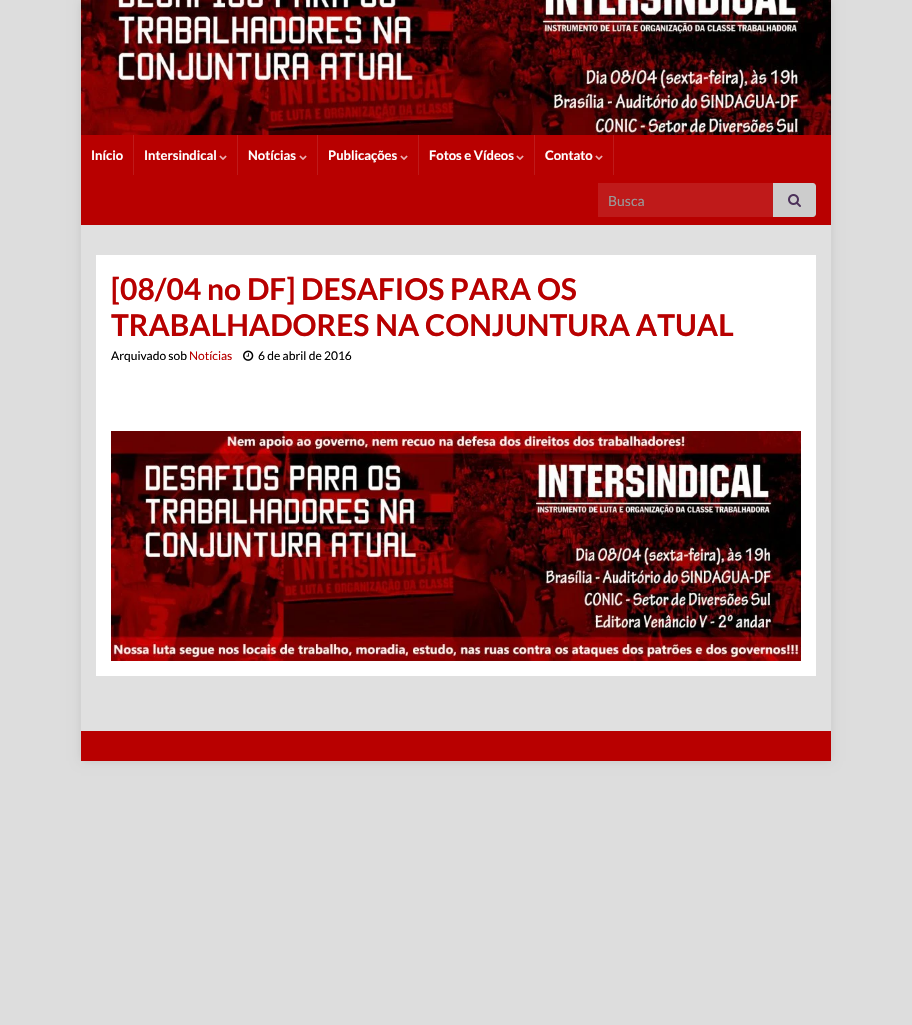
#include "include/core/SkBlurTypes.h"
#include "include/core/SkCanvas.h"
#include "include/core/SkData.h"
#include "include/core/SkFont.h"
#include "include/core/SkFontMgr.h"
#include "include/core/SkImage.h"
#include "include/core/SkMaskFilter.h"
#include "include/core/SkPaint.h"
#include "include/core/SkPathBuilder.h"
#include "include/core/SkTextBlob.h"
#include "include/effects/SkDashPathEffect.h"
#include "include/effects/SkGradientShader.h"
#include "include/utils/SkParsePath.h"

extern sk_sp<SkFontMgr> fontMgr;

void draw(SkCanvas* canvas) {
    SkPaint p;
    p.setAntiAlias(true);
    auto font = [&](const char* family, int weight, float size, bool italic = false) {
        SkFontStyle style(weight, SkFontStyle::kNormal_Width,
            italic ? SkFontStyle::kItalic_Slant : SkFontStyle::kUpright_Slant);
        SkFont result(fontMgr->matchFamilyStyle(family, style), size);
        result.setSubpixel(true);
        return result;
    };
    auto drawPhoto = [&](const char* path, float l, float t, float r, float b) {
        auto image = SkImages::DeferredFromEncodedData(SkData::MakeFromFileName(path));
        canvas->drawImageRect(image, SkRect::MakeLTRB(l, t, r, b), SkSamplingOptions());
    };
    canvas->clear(0xFFDDDDDD);
    p.setColor(0x1A000000);
    p.setMaskFilter(SkMaskFilter::MakeBlur(kNormal_SkBlurStyle, 5));
    canvas->drawRect(SkRect::MakeLTRB(81, 0, 831, 761), p);
    p.setMaskFilter(nullptr);
    drawPhoto("media/1.png", 81, 0, 831, 135);
    p.setColor(0xFFB80000);
    canvas->drawRect(SkRect::MakeLTRB(81, 135, 831, 225), p);
    p.setColor(0xFFBF1A1A);
    canvas->drawRect(SkRect::MakeLTRB(133, 135, 134, 175), p);
    auto font1 = font("Lato", 700, 13);
    p.setColor(0xFFFFFFFF);
    canvas->drawString("Início", 91, 160, font1, p);
    p.setColor(0xFFBF1A1A);
    canvas->drawRect(SkRect::MakeLTRB(237, 135, 238, 175), p);
    p.setColor(0xFFFFFFFF);
    canvas->drawString("Intersindical", 144, 160, font1, p);
    drawPhoto("media/2.png", 219, 155, 227, 160);
    p.setColor(0xFFBF1A1A);
    canvas->drawRect(SkRect::MakeLTRB(317, 135, 318, 175), p);
    p.setColor(0xFFFFFFFF);
    canvas->drawString("Notícias", 248, 160, font1, p);
    drawPhoto("media/2.png", 299, 155, 307, 160);
    p.setColor(0xFFBF1A1A);
    canvas->drawRect(SkRect::MakeLTRB(418, 135, 419, 175), p);
    p.setColor(0xFFFFFFFF);
    canvas->drawString("Publicações", 328, 160, font1, p);
    drawPhoto("media/2.png", 400, 155, 408, 160);
    p.setColor(0xFFBF1A1A);
    canvas->drawRect(SkRect::MakeLTRB(534, 135, 535, 175), p);
    p.setColor(0xFFFFFFFF);
    canvas->drawString("Fotos e Vídeos", 429, 160, font1, p);
    drawPhoto("media/2.png", 516, 155, 524, 160);
    p.setColor(0xFFBF1A1A);
    canvas->drawRect(SkRect::MakeLTRB(613, 135, 614, 175), p);
    p.setColor(0xFFFFFFFF);
    canvas->drawString("Contato", 545, 160, font1, p);
    drawPhoto("media/2.png", 595, 155, 603, 160);
    p.setColor(0xFFBF1A1A);
    canvas->drawRect(SkRect::MakeLTRB(598, 183, 773, 217), p);
    auto font2 = font("Lato", 400, 14);
    p.setColor(0xFF999999);
    canvas->drawString("Busca", 608, 206, font2, p);
    p.setColor(0xFFCCCCCC);
    canvas->drawPath(SkPathBuilder().moveTo(773, 183).lineTo(813, 183).cubicTo(814.5f, 183, 816, 184.5f, 816, 186).lineTo(816, 214).cubicTo(816, 215.5f, 814.5f, 217, 813, 217).lineTo(773, 217).close().detach(), p);
    drawPhoto("media/3.png", 788, 194, 801, 207);
    p.setColor(0xFFE0E0E0);
    canvas->drawRect(SkRect::MakeLTRB(81, 225, 831, 731), p);
    p.setColor(0xFFFFFFFF);
    canvas->drawRect(SkRect::MakeLTRB(96, 255, 816, 676), p);
    auto font3 = font("Lato", 700, 30);
    p.setColor(0xFFB80000);
    canvas->drawString("[08/04 no DF] DESAFIOS PARA OS", 111, 300, font3, p);
    canvas->drawString("TRABALHADORES NA CONJUNTURA ATUAL", 111, 336, font3, p);
    auto font4 = font("Lato", 400, 12);
    p.setColor(0xFF000000);
    canvas->drawString("Arquivado sob", 111, 360, font4, p);
    p.setColor(0xFFB80000);
    canvas->drawString("Notícias", 189, 360, font4, p);
    drawPhoto("media/4.png", 243, 350, 254, 361);
    p.setColor(0xFF000000);
    canvas->drawString("6 de abril de 2016", 258, 360, font4, p);
    drawPhoto("media/5.png", 111, 431, 801, 661);
    p.setColor(0xFFB80000);
    canvas->drawRect(SkRect::MakeLTRB(81, 731, 831, 761), p);
}
